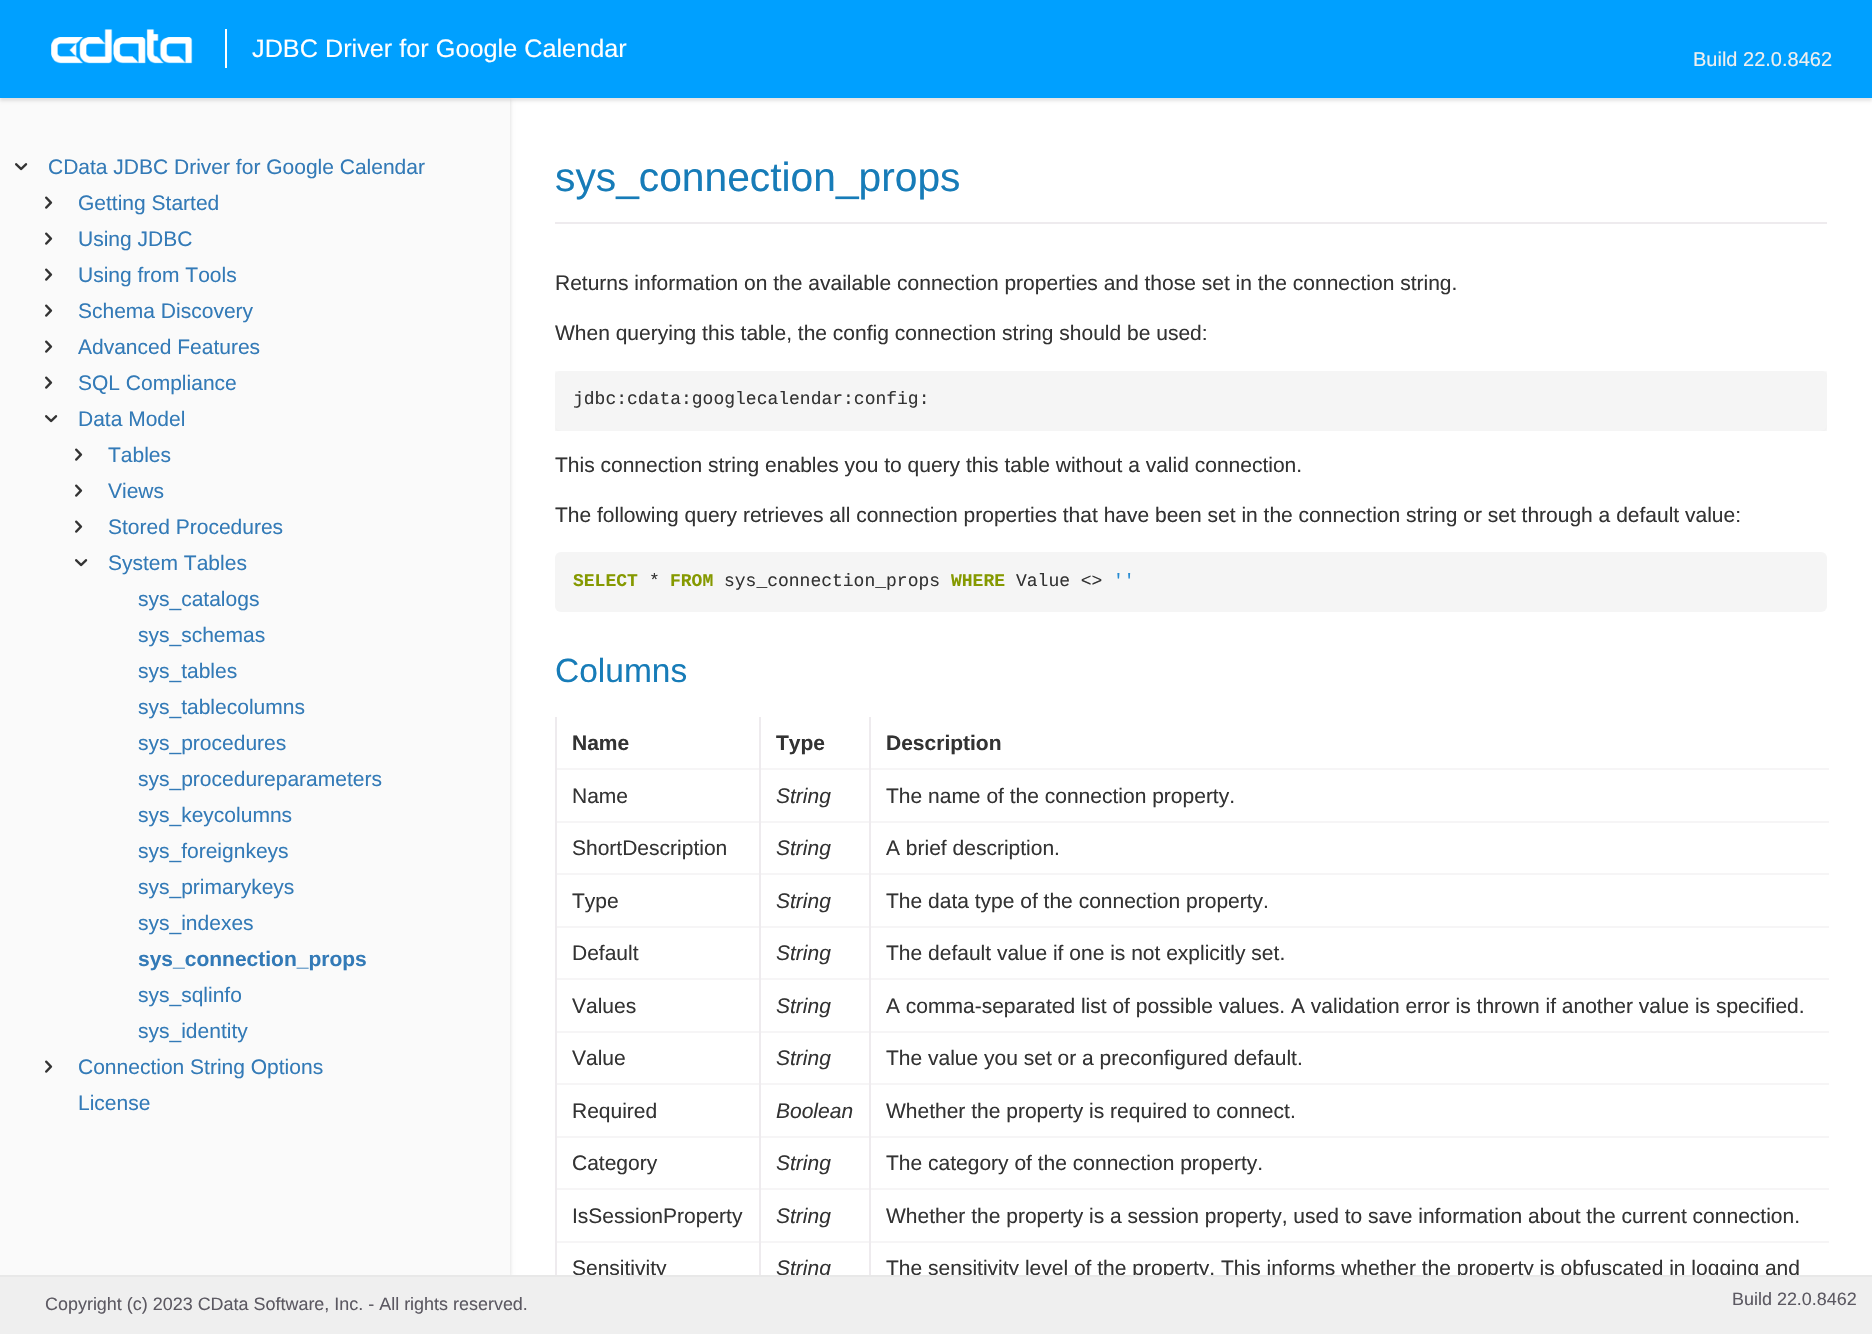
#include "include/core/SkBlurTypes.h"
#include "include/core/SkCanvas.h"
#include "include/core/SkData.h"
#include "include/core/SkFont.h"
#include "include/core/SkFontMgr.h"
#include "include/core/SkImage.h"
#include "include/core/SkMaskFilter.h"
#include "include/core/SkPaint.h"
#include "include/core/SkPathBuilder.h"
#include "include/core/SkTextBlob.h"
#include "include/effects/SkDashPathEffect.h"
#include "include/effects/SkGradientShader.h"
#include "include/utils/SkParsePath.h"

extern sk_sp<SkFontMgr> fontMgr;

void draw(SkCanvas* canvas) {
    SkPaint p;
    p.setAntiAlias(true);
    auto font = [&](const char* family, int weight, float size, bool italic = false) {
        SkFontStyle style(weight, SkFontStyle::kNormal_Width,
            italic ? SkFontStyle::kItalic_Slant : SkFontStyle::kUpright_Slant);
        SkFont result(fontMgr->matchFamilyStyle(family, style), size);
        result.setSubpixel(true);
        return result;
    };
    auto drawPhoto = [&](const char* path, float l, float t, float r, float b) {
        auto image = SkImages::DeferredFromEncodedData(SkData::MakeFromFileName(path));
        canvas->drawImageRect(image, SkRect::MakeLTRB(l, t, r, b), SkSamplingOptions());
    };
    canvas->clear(0xFFFFFFFF);
    p.setColor(0x26000000);
    p.setMaskFilter(SkMaskFilter::MakeBlur(kNormal_SkBlurStyle, 2));
    canvas->drawRect(SkRect::MakeLTRB(0, 99, 510, 1277), p);
    p.setMaskFilter(nullptr);
    p.setColor(0xFFFAFAFA);
    canvas->drawRect(SkRect::MakeLTRB(0, 98, 510, 1275), p);
    p.setColor(0x1A000000);
    p.setMaskFilter(SkMaskFilter::MakeBlur(kNormal_SkBlurStyle, 1.5f));
    canvas->drawRect(SkRect::MakeLTRB(0, 3, 1872, 101), p);
    p.setMaskFilter(nullptr);
    p.setColor(0xFF00A0FF);
    canvas->drawRect(SkRect::MakeLTRB(0, 0, 1872, 98), p);
    drawPhoto("media/1.png", 51, 29, 193, 64);
    p.setColor(0xFFFFFFFF);
    canvas->drawRect(SkRect::MakeLTRB(225, 29, 227, 68), p);
    auto font1 = font("Liberation Sans", 400, 25.25f);
    canvas->drawString("JDBC Driver for Google Calendar", 252, 57, font1, p);
    auto font2 = font("Liberation Sans", 400, 20);
    p.setColor(0xFFEFEFEF);
    canvas->drawString("Build 22.0.8462", 1693, 66, font2, p);
    drawPhoto("media/2.png", 15, 163, 28, 171);
    auto font3 = font("Liberation Sans", 400, 21);
    p.setColor(0xFF337AB7);
    canvas->drawString("CData JDBC Driver for Google Calendar", 48, 174, font3, p);
    drawPhoto("media/3.png", 45, 196, 53, 209);
    canvas->drawString("Getting Started", 78, 210, font3, p);
    drawPhoto("media/3.png", 45, 232, 53, 245);
    canvas->drawString("Using JDBC", 78, 246, font3, p);
    drawPhoto("media/3.png", 45, 268, 53, 281);
    canvas->drawString("Using from Tools", 78, 282, font3, p);
    drawPhoto("media/3.png", 45, 304, 53, 317);
    canvas->drawString("Schema Discovery", 78, 318, font3, p);
    drawPhoto("media/3.png", 45, 340, 53, 353);
    canvas->drawString("Advanced Features", 78, 354, font3, p);
    drawPhoto("media/3.png", 45, 376, 53, 389);
    canvas->drawString("SQL Compliance", 78, 390, font3, p);
    drawPhoto("media/2.png", 45, 415, 58, 423);
    canvas->drawString("Data Model", 78, 426, font3, p);
    drawPhoto("media/3.png", 75, 448, 83, 461);
    canvas->drawString("Tables", 108, 462, font3, p);
    drawPhoto("media/3.png", 75, 484, 83, 497);
    canvas->drawString("Views", 108, 498, font3, p);
    drawPhoto("media/3.png", 75, 520, 83, 533);
    canvas->drawString("Stored Procedures", 108, 534, font3, p);
    drawPhoto("media/2.png", 75, 559, 88, 567);
    {
        const struct { const char* s; float x, y; } items[] = {
            {"System Tables", 108, 570},
            {"sys_catalogs", 138, 606},
            {"sys_schemas", 138, 642},
            {"sys_tables", 138, 678},
            {"sys_tablecolumns", 138, 714},
            {"sys_procedures", 138, 750},
            {"sys_procedureparameters", 138, 786},
            {"sys_keycolumns", 138, 822},
            {"sys_foreignkeys", 138, 858},
            {"sys_primarykeys", 138, 894},
            {"sys_indexes", 138, 930},
        };
        for (auto [s, x, y] : items) {
            canvas->drawString(s, x, y, font3, p);
        }
    }
    auto font4 = font("Liberation Sans", 700, 21);
    canvas->drawString("sys_connection_props", 138, 966, font4, p);
    canvas->drawString("sys_sqlinfo", 138, 1002, font3, p);
    canvas->drawString("sys_identity", 138, 1038, font3, p);
    drawPhoto("media/3.png", 45, 1060, 53, 1073);
    canvas->drawString("Connection String Options", 78, 1074, font3, p);
    canvas->drawString("License", 78, 1110, font3, p);
    p.setColor(0xFFEEEBEE);
    canvas->drawRect(SkRect::MakeLTRB(555, 222, 1827, 224), p);
    auto font5 = font("Liberation Sans", 400, 40.75f);
    p.setColor(0xFF177CB8);
    canvas->drawString("sys_connection_props", 555, 191, font5, p);
    p.setColor(0xFF333333);
    canvas->drawString("Returns information on the available connection properties and those set in the connection string.", 555, 290, font3, p);
    canvas->drawString("When querying this table, the config connection string should be used:", 555, 340, font3, p);
    canvas->save();
    canvas->clipRect(SkRect::MakeLTRB(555, 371, 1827, 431));
    p.setColor(0x12000000);
    p.setMaskFilter(SkMaskFilter::MakeBlur(kNormal_SkBlurStyle, 2));
    canvas->drawRect(SkRect::MakeLTRB(555, 372, 1827, 432), p);
    p.setMaskFilter(nullptr);
    canvas->restore();
    p.setColor(0xFFF5F5F5);
    canvas->drawRoundRect(SkRect::MakeLTRB(555, 371, 1827, 431), 6, 6, p);
    auto font6 = font("Liberation Mono", 400, 18);
    p.setColor(0xFF333333);
    canvas->drawString("jdbc:cdata:googlecalendar:config:", 573, 404, font6, p);
    canvas->drawString("This connection string enables you to query this table without a valid connection.", 555, 472, font3, p);
    canvas->drawString("The following query retrieves all connection properties that have been set in the connection string or set through a default value:", 555, 522, font3, p);
    p.setColor(0xFFF5F5F5);
    canvas->drawRoundRect(SkRect::MakeLTRB(555, 552, 1827, 612), 6, 6, p);
    auto font7 = font("Liberation Mono", 700, 18);
    p.setColor(0xFF859900);
    canvas->drawString("SELECT", 573, 586, font7, p);
    p.setColor(0xFF333333);
    canvas->drawString("*", 649, 586, font6, p);
    p.setColor(0xFF859900);
    canvas->drawString("FROM", 670, 586, font7, p);
    p.setColor(0xFF333333);
    canvas->drawString("sys_connection_props", 724, 586, font6, p);
    p.setColor(0xFF859900);
    canvas->drawString("WHERE", 951, 586, font7, p);
    p.setColor(0xFF333333);
    canvas->drawString("Value <>", 1016, 586, font6, p);
    p.setColor(0xFF268BD2);
    canvas->drawString("''", 1113, 586, font6, p);
    auto font8 = font("Liberation Sans", 400, 33.5f);
    p.setColor(0xFF177CB8);
    canvas->drawString("Columns", 555, 682, font8, p);
    {
        const struct { float l, t, r, b; SkColor color; } items[] = {
            {869, 1241, 871, 1275, 0xFFEEEBEE},
            {869, 1241, 1829, 1243, 0x80EEEBEE},
            {869, 1188, 871, 1242, 0xFFEEEBEE},
            {869, 1188, 1829, 1190, 0x80EEEBEE},
            {869, 1136, 871, 1190, 0xFFEEEBEE},
            {869, 1136, 1829, 1138, 0x80EEEBEE},
            {869, 1083, 871, 1137, 0xFFEEEBEE},
            {869, 1083, 1829, 1085, 0x80EEEBEE},
            {869, 1031, 871, 1085, 0xFFEEEBEE},
            {869, 1031, 1829, 1033, 0x80EEEBEE},
            {869, 978, 871, 1032, 0xFFEEEBEE},
            {869, 978, 1829, 980, 0x80EEEBEE},
            {869, 926, 871, 980, 0xFFEEEBEE},
            {869, 926, 1829, 928, 0x80EEEBEE},
            {869, 873, 871, 927, 0xFFEEEBEE},
            {869, 873, 1829, 875, 0x80EEEBEE},
            {869, 821, 871, 875, 0xFFEEEBEE},
            {869, 821, 1829, 823, 0x80EEEBEE},
            {869, 768, 871, 822, 0xFFEEEBEE},
            {869, 768, 1829, 770, 0x80EEEBEE},
            {869, 717, 871, 770, 0xFFEEEBEE},
            {759, 1241, 761, 1275, 0xFFEEEBEE},
            {759, 1241, 870, 1243, 0x80EEEBEE},
            {759, 1188, 761, 1242, 0xFFEEEBEE},
            {759, 1188, 870, 1190, 0x80EEEBEE},
            {759, 1136, 761, 1190, 0xFFEEEBEE},
            {759, 1136, 870, 1138, 0x80EEEBEE},
            {759, 1083, 761, 1137, 0xFFEEEBEE},
            {759, 1083, 870, 1085, 0x80EEEBEE},
            {759, 1031, 761, 1085, 0xFFEEEBEE},
            {759, 1031, 870, 1033, 0x80EEEBEE},
            {759, 978, 761, 1032, 0xFFEEEBEE},
            {759, 978, 870, 980, 0x80EEEBEE},
            {759, 926, 761, 980, 0xFFEEEBEE},
            {759, 926, 870, 928, 0x80EEEBEE},
            {759, 873, 761, 927, 0xFFEEEBEE},
            {759, 873, 870, 875, 0x80EEEBEE},
            {759, 821, 761, 875, 0xFFEEEBEE},
            {759, 821, 870, 823, 0x80EEEBEE},
            {759, 768, 761, 822, 0xFFEEEBEE},
            {759, 768, 870, 770, 0x80EEEBEE},
            {759, 717, 761, 770, 0xFFEEEBEE},
            {555, 1241, 557, 1275, 0xFFEEEBEE},
            {555, 1241, 761, 1243, 0x80EEEBEE},
            {555, 1188, 557, 1242, 0xFFEEEBEE},
            {555, 1188, 761, 1190, 0x80EEEBEE},
            {555, 1136, 557, 1190, 0xFFEEEBEE},
            {555, 1136, 761, 1138, 0x80EEEBEE},
            {555, 1083, 557, 1137, 0xFFEEEBEE},
            {555, 1083, 761, 1085, 0x80EEEBEE},
            {555, 1031, 557, 1085, 0xFFEEEBEE},
            {555, 1031, 761, 1033, 0x80EEEBEE},
            {555, 978, 557, 1032, 0xFFEEEBEE},
            {555, 978, 761, 980, 0x80EEEBEE},
            {555, 926, 557, 980, 0xFFEEEBEE},
            {555, 926, 761, 928, 0x80EEEBEE},
            {555, 873, 557, 927, 0xFFEEEBEE},
            {555, 873, 761, 875, 0x80EEEBEE},
            {555, 821, 557, 875, 0xFFEEEBEE},
            {555, 821, 761, 823, 0x80EEEBEE},
            {555, 768, 557, 822, 0xFFEEEBEE},
            {555, 768, 761, 770, 0x80EEEBEE},
            {555, 717, 557, 770, 0xFFEEEBEE},
        };
        for (auto [l, t, r, b, color] : items) {
            p.setColor(color);
            canvas->drawRect(SkRect::MakeLTRB(l, t, r, b), p);
        }
    }
    p.setColor(0xFF333333);
    {
        const struct { const char* s; float x, y; } items[] = {
            {"Name", 572, 750},
            {"Type", 776, 750},
            {"Description", 886, 750},
        };
        for (auto [s, x, y] : items) {
            canvas->drawString(s, x, y, font4, p);
        }
    }
    canvas->drawString("Name", 572, 803, font3, p);
    auto font9 = font("Liberation Sans", 400, 21, true);
    canvas->drawString("String", 776, 803, font9, p);
    canvas->drawString("The name of the connection property.", 886, 803, font3, p);
    canvas->drawString("ShortDescription", 572, 855, font3, p);
    canvas->drawString("String", 776, 855, font9, p);
    canvas->drawString("A brief description.", 886, 855, font3, p);
    canvas->drawString("Type", 572, 908, font3, p);
    canvas->drawString("String", 776, 908, font9, p);
    canvas->drawString("The data type of the connection property.", 886, 908, font3, p);
    canvas->drawString("Default", 572, 960, font3, p);
    canvas->drawString("String", 776, 960, font9, p);
    canvas->drawString("The default value if one is not explicitly set.", 886, 960, font3, p);
    canvas->drawString("Values", 572, 1013, font3, p);
    canvas->drawString("String", 776, 1013, font9, p);
    canvas->drawString("A comma-separated list of possible values. A validation error is thrown if another value is specified.", 886, 1013, font3, p);
    canvas->drawString("Value", 572, 1065, font3, p);
    canvas->drawString("String", 776, 1065, font9, p);
    canvas->drawString("The value you set or a preconfigured default.", 886, 1065, font3, p);
    canvas->drawString("Required", 572, 1118, font3, p);
    canvas->drawString("Boolean", 776, 1118, font9, p);
    canvas->drawString("Whether the property is required to connect.", 886, 1118, font3, p);
    canvas->drawString("Category", 572, 1170, font3, p);
    canvas->drawString("String", 776, 1170, font9, p);
    canvas->drawString("The category of the connection property.", 886, 1170, font3, p);
    canvas->drawString("IsSessionProperty", 572, 1223, font3, p);
    canvas->drawString("String", 776, 1223, font9, p);
    canvas->drawString("Whether the property is a session property, used to save information about the current connection.", 886, 1223, font3, p);
    canvas->drawString("Sensitivity", 572, 1275, font3, p);
    canvas->drawString("String", 776, 1275, font9, p);
    canvas->drawString("The sensitivity level of the property. This informs whether the property is obfuscated in logging and", 886, 1275, font3, p);
    p.setColor(0xFFEFEFEF);
    canvas->drawRect(SkRect::MakeLTRB(0, 1277, 1872, 1334), p);
    p.setColor(0xFFE8E8E8);
    canvas->drawRect(SkRect::MakeLTRB(0, 1275, 1872, 1277), p);
    auto font10 = font("Liberation Sans", 400, 17.95f);
    p.setColor(0xFF5C5962);
    canvas->drawString("Copyright (c) 2023 CData Software, Inc. - All rights reserved.", 45, 1310, font10, p);
    canvas->drawString("Build 22.0.8462", 1732, 1305, font10, p);
}
